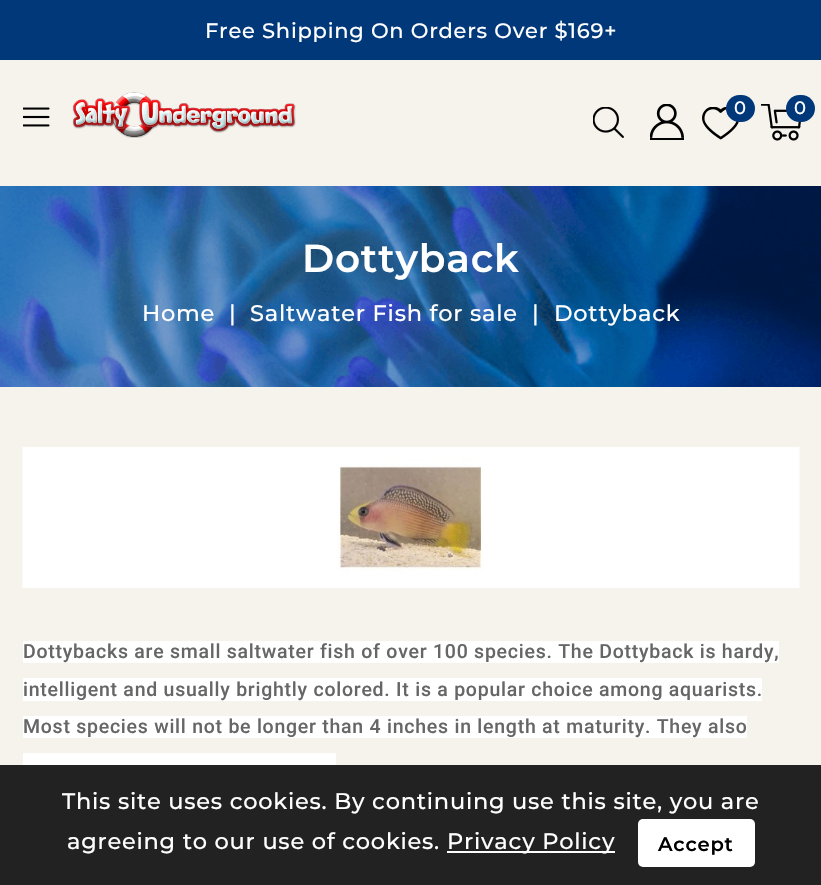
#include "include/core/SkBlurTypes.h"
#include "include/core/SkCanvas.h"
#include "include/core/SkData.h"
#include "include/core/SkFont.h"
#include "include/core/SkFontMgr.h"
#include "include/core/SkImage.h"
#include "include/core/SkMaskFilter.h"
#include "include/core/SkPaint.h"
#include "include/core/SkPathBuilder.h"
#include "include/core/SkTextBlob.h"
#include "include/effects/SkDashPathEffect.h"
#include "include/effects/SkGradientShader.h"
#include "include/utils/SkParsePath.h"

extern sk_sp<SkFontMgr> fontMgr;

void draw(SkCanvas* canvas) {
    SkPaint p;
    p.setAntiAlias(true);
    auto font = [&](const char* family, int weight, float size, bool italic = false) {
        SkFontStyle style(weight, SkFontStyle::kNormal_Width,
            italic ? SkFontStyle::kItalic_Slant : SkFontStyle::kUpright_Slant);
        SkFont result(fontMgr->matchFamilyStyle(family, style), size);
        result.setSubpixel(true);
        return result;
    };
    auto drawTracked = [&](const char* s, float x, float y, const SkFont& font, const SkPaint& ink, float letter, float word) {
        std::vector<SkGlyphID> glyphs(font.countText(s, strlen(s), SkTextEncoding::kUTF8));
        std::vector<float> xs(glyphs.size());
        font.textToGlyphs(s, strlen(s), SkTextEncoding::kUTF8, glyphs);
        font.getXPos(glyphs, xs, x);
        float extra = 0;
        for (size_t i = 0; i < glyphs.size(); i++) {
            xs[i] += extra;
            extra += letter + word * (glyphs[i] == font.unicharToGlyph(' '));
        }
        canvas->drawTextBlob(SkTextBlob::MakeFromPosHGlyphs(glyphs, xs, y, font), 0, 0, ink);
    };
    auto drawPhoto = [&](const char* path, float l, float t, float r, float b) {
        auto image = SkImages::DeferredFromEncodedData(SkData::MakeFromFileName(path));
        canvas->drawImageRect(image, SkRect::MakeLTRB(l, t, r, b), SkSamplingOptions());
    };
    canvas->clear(0xFFF6F3ED);
    p.setColor(0xFF01387A);
    canvas->drawRect(SkRect::MakeLTRB(0, 0, 821, 60), p);
    auto font1 = font("Montserrat", 500, 21);
    p.setColor(0xFFFFFFFF);
    drawTracked("Free Shipping On Orders Over $169+", 205, 38, font1, p, 0.75f, 0);
    drawPhoto("media/1.png", 23, 107, 50, 127);
    drawPhoto("media/2.png", 72, 92, 296, 138);
    drawPhoto("media/3.png", 593, 107, 624, 138);
    drawPhoto("media/4.png", 650, 104, 684, 140);
    drawPhoto("media/5.png", 702, 107, 739, 140);
    p.setColor(0xFF01387A);
    canvas->drawRoundRect(SkRect::MakeLTRB(726, 95, 755, 122), 13.5f, 13.5f, p);
    auto font2 = font("Montserrat", 500, 18);
    p.setColor(0xFFFFFFFF);
    drawTracked("0", 734, 114, font2, p, 0.75f, 0);
    drawPhoto("media/6.png", 761, 104, 801, 141);
    p.setColor(0xFF01387A);
    canvas->drawRoundRect(SkRect::MakeLTRB(786, 95, 815, 122), 13.5f, 13.5f, p);
    p.setColor(0xFFFFFFFF);
    drawTracked("0", 794, 114, font2, p, 0.75f, 0);
    drawPhoto("media/7.png", 0, 186, 821, 387);
    auto font3 = font("Montserrat", 600, 39);
    drawTracked("Dottyback", 302, 272, font3, p, 0.75f, 0);
    auto font4 = font("Montserrat", 500, 22.5f);
    {
        const struct { const char* s; float x, y; } items[] = {
            {"Home", 142, 321},
            {"|", 229, 321},
            {"Saltwater Fish for sale", 250, 321},
            {"|", 532, 321},
            {"Dottyback", 554, 321},
        };
        for (auto [s, x, y] : items) {
            drawTracked(s, x, y, font4, p, 0.75f, 0);
        }
    }
    drawPhoto("media/8.png", 22, 447, 800, 588);
    canvas->drawRect(SkRect::MakeLTRB(23, 641, 779, 663), p);
    auto font5 = font("Roboto", 500, 19.5f);
    p.setColor(0xFF666666);
    drawTracked("Dottybacks are small saltwater fish of over 100 species. The Dottyback is hardy,", 23, 658, font5, p, 0.75f, 0);
    p.setColor(0xFFFFFFFF);
    canvas->drawRect(SkRect::MakeLTRB(23, 678, 762, 701), p);
    p.setColor(0xFF666666);
    drawTracked("intelligent and usually brightly colored. It is a popular choice among aquarists.", 23, 696, font5, p, 0.75f, 0);
    p.setColor(0xFFFFFFFF);
    canvas->drawRect(SkRect::MakeLTRB(23, 716, 747, 738), p);
    p.setColor(0xFF666666);
    drawTracked("Most species will not be longer than 4 inches in length at maturity. They also", 23, 733, font5, p, 0.75f, 0);
    p.setColor(0xFFFFFFFF);
    canvas->drawRect(SkRect::MakeLTRB(23, 753, 336, 765), p);
    p.setColor(0xFF222222);
    canvas->drawRect(SkRect::MakeLTRB(0, 765, 821, 885), p);
    p.setColor(0xFFFFFFFF);
    drawTracked("This site uses cookies. By continuing use this site, you are", 62, 809, font4, p, 0.75f, 0);
    drawTracked("agreeing to our use of cookies.", 67, 849, font4, p, 0.75f, 0);
    canvas->drawRect(SkRect::MakeLTRB(447, 851, 615, 853), p);
    drawTracked("Privacy Policy", 447, 849, font4, p, 0.75f, 0);
    canvas->drawRoundRect(SkRect::MakeLTRB(638, 819, 755, 867), 5, 5, p);
    auto font6 = font("Montserrat", 600, 19.5f);
    p.setColor(0xFF000000);
    drawTracked("Accept", 658, 851, font6, p, 0.75f, 0);
}
